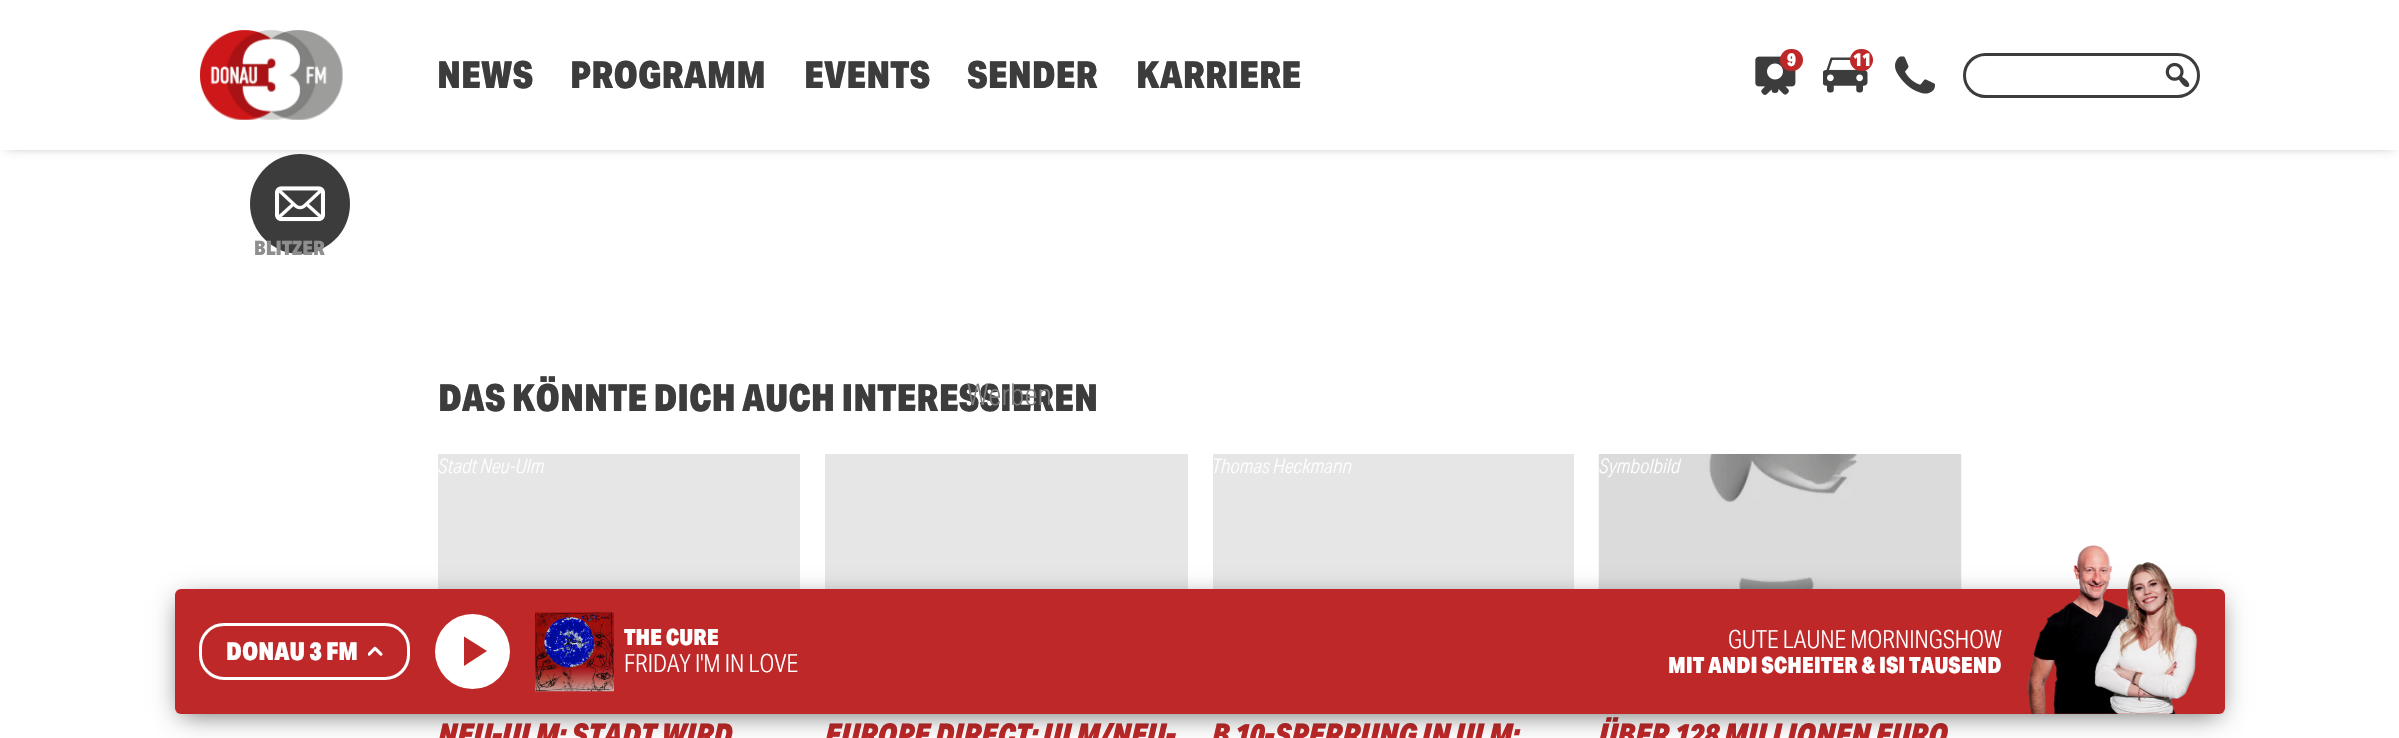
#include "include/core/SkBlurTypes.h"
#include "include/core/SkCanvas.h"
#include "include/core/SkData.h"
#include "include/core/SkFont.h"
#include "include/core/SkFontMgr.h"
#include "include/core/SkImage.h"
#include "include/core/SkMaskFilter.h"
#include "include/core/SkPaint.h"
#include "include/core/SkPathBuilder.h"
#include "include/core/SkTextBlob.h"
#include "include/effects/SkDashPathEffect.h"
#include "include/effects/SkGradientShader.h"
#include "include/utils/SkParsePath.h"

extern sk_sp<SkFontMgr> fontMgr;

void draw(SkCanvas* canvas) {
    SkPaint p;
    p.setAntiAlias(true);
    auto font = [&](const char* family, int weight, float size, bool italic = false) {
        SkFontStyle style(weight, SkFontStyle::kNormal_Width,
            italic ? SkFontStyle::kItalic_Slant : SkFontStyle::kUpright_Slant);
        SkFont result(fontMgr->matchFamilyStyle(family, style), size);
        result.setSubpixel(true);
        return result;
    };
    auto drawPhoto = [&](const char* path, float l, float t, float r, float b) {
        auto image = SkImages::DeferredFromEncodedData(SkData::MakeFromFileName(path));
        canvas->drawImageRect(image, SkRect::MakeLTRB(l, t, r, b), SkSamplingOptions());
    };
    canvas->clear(0xFFFFFFFF);
    p.setColor(0xFF3C3C3C);
    canvas->drawCircle(300, 204, 50, p);
    p.setColor(0x99000000);
    p.setMaskFilter(SkMaskFilter::MakeBlur(kNormal_SkBlurStyle, 6));
    canvas->drawRect(SkRect::MakeLTRB(6, 6, 2394, 144), p);
    p.setMaskFilter(nullptr);
    p.setColor(0xFFFFFFFF);
    canvas->drawRect(SkRect::MakeLTRB(0, 0, 2399, 150), p);
    drawPhoto("media/1.png", 200, 30, 343, 120);
    auto font1 = font("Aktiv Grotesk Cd", 900, 37.5f);
    p.setColor(0xFF3C3C3C);
    {
        const struct { const char* s; float x, y; } items[] = {
            {"NEWS", 437, 88},
            {"PROGRAMM", 570, 88},
            {"EVENTS", 804, 88},
            {"SENDER", 967, 88},
            {"DAS KÖNNTE DICH AUCH INTERESSIEREN", 438, 411},
        };
        for (auto [s, x, y] : items) {
            canvas->drawString(s, x, y, font1, p);
        }
    }
    auto font2 = font("Aktiv Grotesk Cd", 300, 30);
    p.setColor(0xFF7E7E7E);
    canvas->drawString("Werben", 967, 405, font2, p);
    p.setColor(0xFF3C3C3C);
    canvas->drawString("KARRIERE", 1136, 88, font1, p);
    drawPhoto("media/2.png", 1755, 56, 1796, 95);
    p.setColor(0xFFBE2828);
    canvas->drawRoundRect(SkRect::MakeLTRB(1780, 49, 1803, 71), 11, 11, p);
    auto font3 = font("Aktiv Grotesk Cd", 900, 18);
    p.setColor(0xFFFFFFFF);
    canvas->drawString("9", 1787, 66, font3, p);
    drawPhoto("media/3.png", 1823, 57, 1868, 93);
    p.setColor(0xFFBE2828);
    canvas->drawRoundRect(SkRect::MakeLTRB(1850, 49, 1873, 71), 11, 11, p);
    p.setColor(0xFFFFFFFF);
    canvas->drawString("11", 1853, 66, font3, p);
    drawPhoto("media/4.png", 1895, 56, 1935, 94);
    p.setStyle(SkPaint::kStroke_Style);
    p.setStrokeWidth(3);
    p.setColor(0xFF3C3C3C);
    canvas->drawRoundRect(SkRect::MakeLTRB(1964.5f, 54.5f, 2198.5f, 96.5f), 21, 21, p);
    drawPhoto("media/5.png", 2165, 62, 2190, 88);
    auto font4 = font("Aktiv Grotesk Cd", 900, 20);
    p.setStyle(SkPaint::kFill_Style);
    p.setColor(0xFF8E8E8E);
    canvas->drawString("BLITZER", 254, 255, font4, p);
    drawPhoto("media/6.png", 275, 186, 325, 222);
    p.setColor(0xFFE6E6E6);
    canvas->drawRect(SkRect::MakeLTRB(438, 454, 800, 589), p);
    auto font5 = font("Aktiv Grotesk Cd", 300, 20, true);
    p.setColor(0xFFFFFFFF);
    canvas->drawString("Stadt Neu-Ulm", 438, 473, font5, p);
    auto font6 = font("Aktiv Grotesk Cd", 900, 30, true);
    p.setColor(0xFFBE2828);
    canvas->drawString("NEU-ULM: STADT WIRD", 438, 745, font6, p);
    p.setColor(0xFFE6E6E6);
    canvas->drawRect(SkRect::MakeLTRB(825, 454, 1188, 589), p);
    p.setColor(0xFFBE2828);
    canvas->drawString("EUROPE DIRECT: ULM/NEU-", 825, 745, font6, p);
    p.setColor(0xFFE6E6E6);
    canvas->drawRect(SkRect::MakeLTRB(1213, 454, 1574, 589), p);
    p.setColor(0xFFFFFFFF);
    canvas->drawString("Thomas Heckmann", 1212, 473, font5, p);
    p.setColor(0xFFBE2828);
    canvas->drawString("B 10-SPERRUNG IN ULM:", 1212, 745, font6, p);
    drawPhoto("media/7.png", 1598, 454, 1962, 589);
    p.setColor(0xFFFFFFFF);
    canvas->drawString("Symbolbild", 1599, 473, font5, p);
    p.setColor(0xFFBE2828);
    canvas->drawString("ÜBER 128 MILLIONEN EURO", 1599, 745, font6, p);
    p.setColor(0x99000000);
    p.setMaskFilter(SkMaskFilter::MakeBlur(kNormal_SkBlurStyle, 12.5f));
    canvas->drawRect(SkRect::MakeLTRB(181, 601, 2219, 714), p);
    p.setMaskFilter(nullptr);
    p.setColor(0xFFBE2828);
    canvas->drawRoundRect(SkRect::MakeLTRB(175, 589, 2225, 714), 6, 6, p);
    p.setStyle(SkPaint::kStroke_Style);
    p.setColor(0xFFFFFFFF);
    canvas->drawRoundRect(SkRect::MakeLTRB(200.5f, 624.5f, 408.5f, 678.5f), 23.5f, 23.5f, p);
    auto font7 = font("Aktiv Grotesk Cd", 900, 25);
    p.setStyle(SkPaint::kFill_Style);
    canvas->drawString("DONAU 3 FM", 226, 660, font7, p);
    drawPhoto("media/8.png", 368, 646, 383, 656);
    canvas->drawCircle(472.5f, 651.5f, 37.5f, p);
    p.setColor(0xFFBE2828);
    canvas->drawPath(SkPathBuilder().moveTo(464, 636.5f).lineTo(487, 651).lineTo(464, 666).close().detach(), p);
    drawPhoto("media/9.png", 535, 612, 614, 692);
    auto font8 = font("Aktiv Grotesk Cd", 900, 22.5f);
    p.setColor(0xFFFFFFFF);
    canvas->drawString("THE CURE", 624, 645, font8, p);
    auto font9 = font("Aktiv Grotesk Cd", 300, 25);
    canvas->drawString("FRIDAY I'M IN LOVE", 624, 672, font9, p);
    canvas->drawString("GUTE LAUNE MORNINGSHOW", 1728, 648, font9, p);
    canvas->drawString("MIT ANDI SCHEITER & ISI TAUSEND", 1668, 673, font8, p);
    drawPhoto("media/10.png", 2027, 545, 2198, 714);
}
